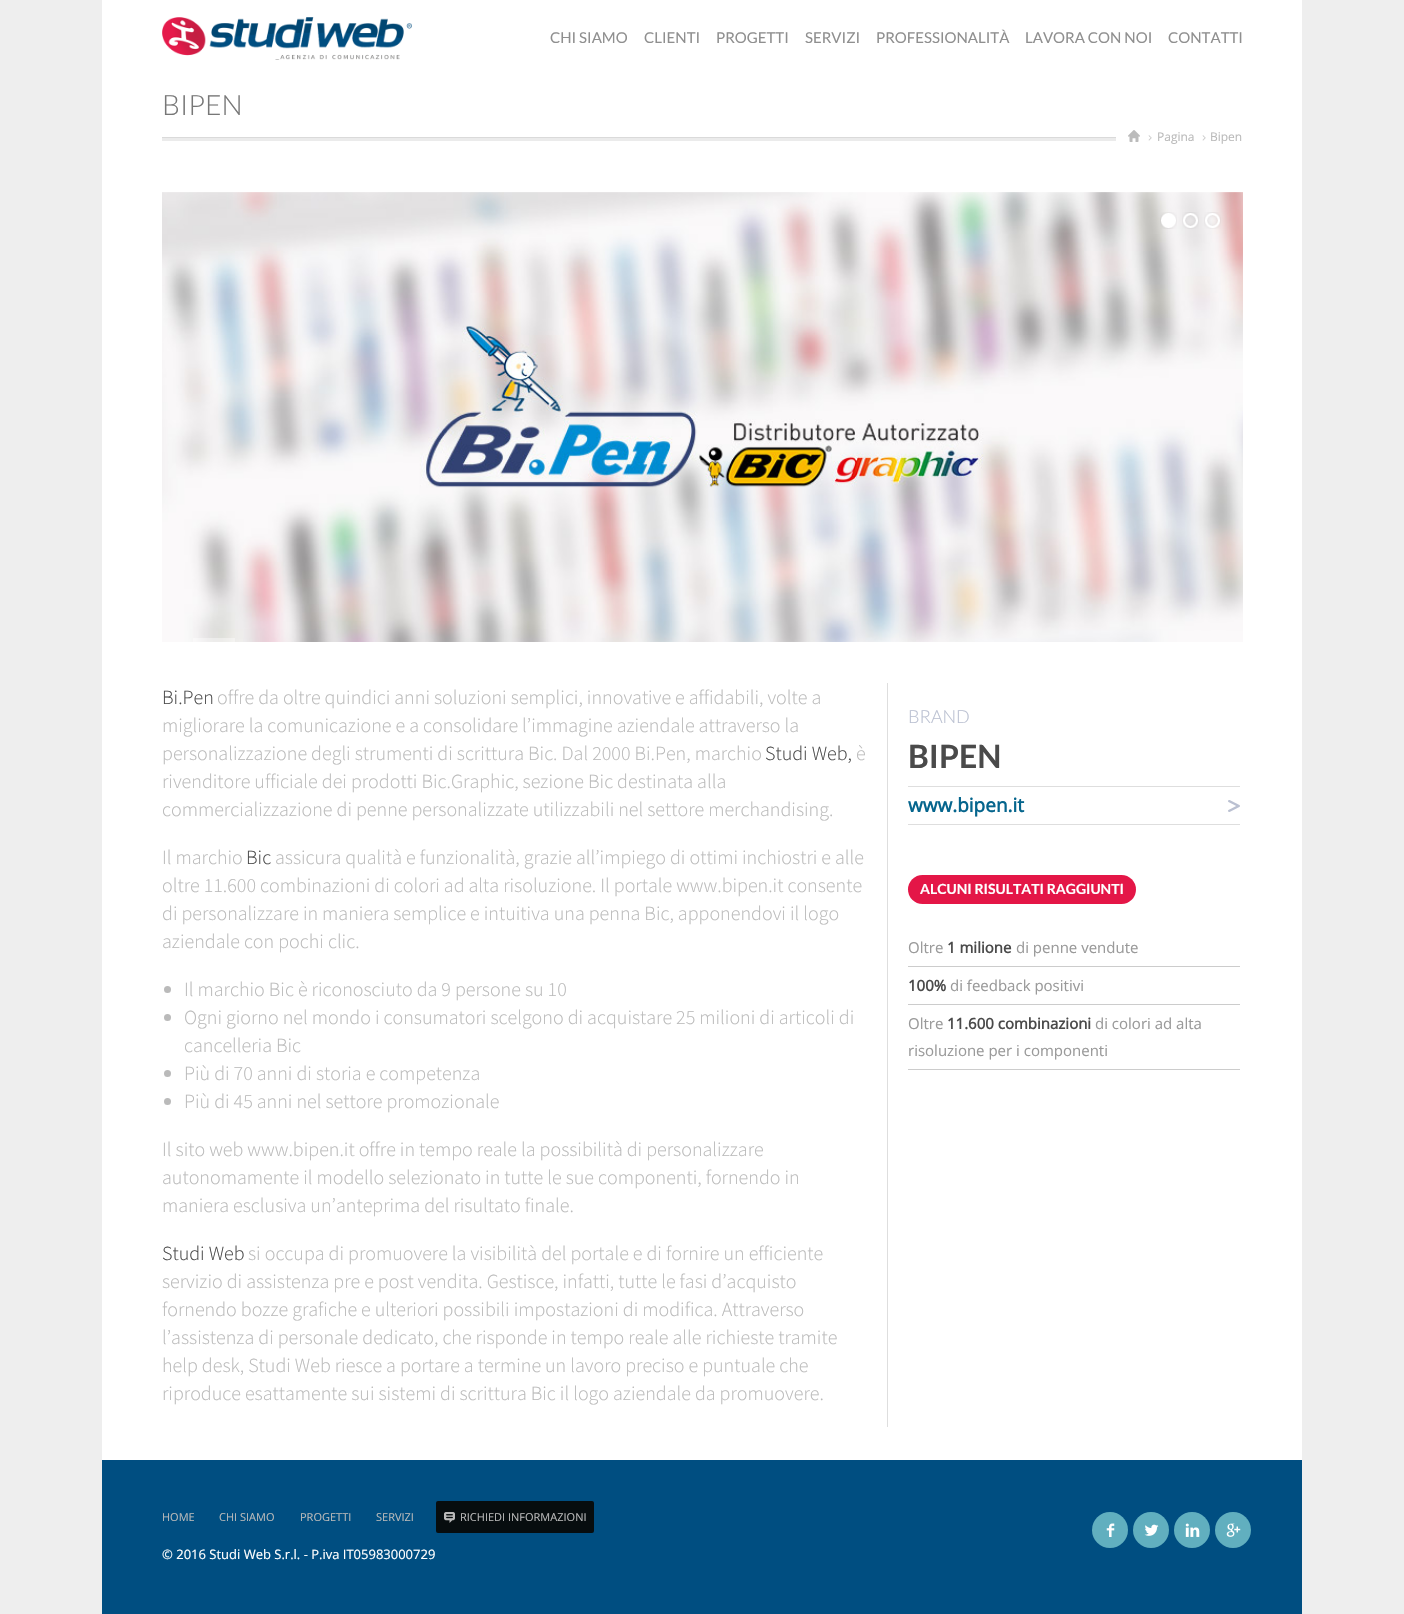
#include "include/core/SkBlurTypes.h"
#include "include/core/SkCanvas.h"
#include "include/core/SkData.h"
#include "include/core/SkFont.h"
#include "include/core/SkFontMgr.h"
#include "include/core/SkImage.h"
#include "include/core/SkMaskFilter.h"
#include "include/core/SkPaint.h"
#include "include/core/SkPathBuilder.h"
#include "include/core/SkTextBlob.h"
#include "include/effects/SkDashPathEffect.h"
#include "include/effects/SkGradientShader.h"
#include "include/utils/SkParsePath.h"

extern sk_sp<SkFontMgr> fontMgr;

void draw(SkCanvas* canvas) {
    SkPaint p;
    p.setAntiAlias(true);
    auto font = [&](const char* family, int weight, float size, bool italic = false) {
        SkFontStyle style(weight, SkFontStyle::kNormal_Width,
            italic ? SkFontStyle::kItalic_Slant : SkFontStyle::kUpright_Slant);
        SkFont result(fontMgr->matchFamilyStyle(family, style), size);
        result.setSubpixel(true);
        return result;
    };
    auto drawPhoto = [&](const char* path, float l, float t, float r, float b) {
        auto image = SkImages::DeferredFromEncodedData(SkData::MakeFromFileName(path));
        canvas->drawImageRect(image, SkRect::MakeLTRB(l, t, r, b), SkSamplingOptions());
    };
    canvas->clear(0xFFEEEEEE);
    p.setColor(0xFFFFFFFF);
    canvas->drawRect(SkRect::MakeLTRB(102, 0, 1302, 1460), p);
    drawPhoto("media/1.png", 162, 17, 412, 60);
    auto font1 = font("Lato", 400, 15);
    p.setColor(0xFF8F8F8F);
    {
        const struct { const char* s; float x, y; } items[] = {
            {"CHI SIAMO", 550, 43},
            {"CLIENTI", 644, 43},
            {"PROGETTI", 716, 43},
            {"SERVIZI", 805, 43},
            {"PROFESSIONALITÀ", 876, 43},
            {"LAVORA CON NOI", 1025, 43},
            {"CONTATTI", 1168, 43},
        };
        for (auto [s, x, y] : items) {
            canvas->drawString(s, x, y, font1, p);
        }
    }
    auto font2 = font("Lato", 300, 28);
    p.setColor(0xFF777777);
    canvas->drawString("BIPEN", 162, 115, font2, p);
    p.setColor(0xFFDADADA);
    canvas->drawRect(SkRect::MakeLTRB(162, 137, 1116, 138), p);
    p.setColor(0xFFEBEBEB);
    canvas->drawRect(SkRect::MakeLTRB(162, 138, 1116, 141), p);
    drawPhoto("media/2.png", 1128, 130, 1140, 142);
    auto font3 = font("Rationale", 400, 12);
    p.setColor(0xFFC9C9C9);
    canvas->drawString(">", 1148, 142, font3, p);
    auto font4 = font("Open Sans", 400, 12);
    p.setColor(0xFFBABABA);
    canvas->drawString("Pagina", 1157, 141, font4, p);
    p.setColor(0xFFC9C9C9);
    canvas->drawString(">", 1202, 142, font3, p);
    p.setColor(0xFFBABABA);
    canvas->drawString("Bipen", 1210, 141, font4, p);
    drawPhoto("media/3.png", 162, 192, 1243, 642);
    p.setColor(0x66FFFFFF);
    canvas->drawRect(SkRect::MakeLTRB(193, 638, 235, 642), p);
    drawPhoto("media/4.png", 1160, 212, 1177, 229);
    drawPhoto("media/5.png", 1182, 212, 1199, 229);
    drawPhoto("media/6.png", 1204, 212, 1221, 229);
    p.setColor(0xFFDEDEDE);
    canvas->drawRect(SkRect::MakeLTRB(887, 683, 888, 1427), p);
    auto font5 = font("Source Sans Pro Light", 300, 20);
    p.setColor(0xFF4A4A4A);
    canvas->drawString("Bi.Pen", 162, 704, font5, p);
    p.setColor(0xFFBABABA);
    {
        const struct { const char* s; float x, y; } items[] = {
            {"offre da oltre quindici anni soluzioni semplici, innovative e affidabili, volte a", 217, 704},
            {"migliorare la comunicazione e a consolidare l’immagine aziendale attraverso la", 162, 732},
            {"personalizzazione degli strumenti di scrittura Bic. Dal 2000 Bi.Pen, marchio", 162, 760},
        };
        for (auto [s, x, y] : items) {
            canvas->drawString(s, x, y, font5, p);
        }
    }
    p.setColor(0xFF4A4A4A);
    canvas->drawString("Studi Web,", 765, 760, font5, p);
    p.setColor(0xFFBABABA);
    {
        const struct { const char* s; float x, y; } items[] = {
            {"è", 856, 760},
            {"rivenditore ufficiale dei prodotti Bic.Graphic, sezione Bic destinata alla", 162, 788},
            {"commercializzazione di penne personalizzate utilizzabili nel settore merchandising.", 162, 816},
            {"Il marchio", 162, 864},
        };
        for (auto [s, x, y] : items) {
            canvas->drawString(s, x, y, font5, p);
        }
    }
    p.setColor(0xFF4A4A4A);
    canvas->drawString("Bic", 246, 864, font5, p);
    p.setColor(0xFFBABABA);
    {
        const struct { const char* s; float x, y; } items[] = {
            {"assicura qualità e funzionalità, grazie all’impiego di ottimi inchiostri e alle", 275, 864},
            {"oltre 11.600 combinazioni di colori ad alta risoluzione. Il portale www.bipen.it consente", 162, 892},
            {"di personalizzare in maniera semplice e intuitiva una penna Bic, apponendovi il logo", 162, 920},
            {"aziendale con pochi clic.", 162, 948},
        };
        for (auto [s, x, y] : items) {
            canvas->drawString(s, x, y, font5, p);
        }
    }
    canvas->drawCircle(167.5f, 989.5f, 3.5f, p);
    canvas->drawString("Il marchio Bic è riconosciuto da 9 persone su 10", 184, 996, font5, p);
    canvas->drawCircle(167.5f, 1017.5f, 3.5f, p);
    canvas->drawString("Ogni giorno nel mondo i consumatori scelgono di acquistare 25 milioni di articoli di", 184, 1024, font5, p);
    canvas->drawString("cancelleria Bic", 184, 1052, font5, p);
    canvas->drawCircle(167.5f, 1073.5f, 3.5f, p);
    canvas->drawString("Più di 70 anni di storia e competenza", 184, 1080, font5, p);
    canvas->drawCircle(167.5f, 1101.5f, 3.5f, p);
    {
        const struct { const char* s; float x, y; } items[] = {
            {"Più di 45 anni nel settore promozionale", 184, 1108},
            {"Il sito web www.bipen.it offre in tempo reale la possibilità di personalizzare", 162, 1156},
            {"autonomamente il modello selezionato in tutte le sue componenti, fornendo in", 162, 1184},
            {"maniera esclusiva un’anteprima del risultato finale.", 162, 1212},
        };
        for (auto [s, x, y] : items) {
            canvas->drawString(s, x, y, font5, p);
        }
    }
    p.setColor(0xFF4A4A4A);
    canvas->drawString("Studi Web", 162, 1260, font5, p);
    p.setColor(0xFFBABABA);
    {
        const struct { const char* s; float x, y; } items[] = {
            {"si occupa di promuovere la visibilità del portale e di fornire un efficiente", 248, 1260},
            {"servizio di assistenza pre e post vendita. Gestisce, infatti, tutte le fasi d’acquisto", 162, 1288},
            {"fornendo bozze grafiche e ulteriori possibili impostazioni di modifica. Attraverso", 162, 1316},
            {"l’assistenza di personale dedicato, che risponde in tempo reale alle richieste tramite", 162, 1344},
            {"help desk, Studi Web riesce a portare a termine un lavoro preciso e puntuale che", 162, 1372},
            {"riproduce esattamente sui sistemi di scrittura Bic il logo aziendale da promuovere.", 162, 1400},
        };
        for (auto [s, x, y] : items) {
            canvas->drawString(s, x, y, font5, p);
        }
    }
    auto font6 = font("Lato", 300, 18);
    p.setColor(0xFFBAC0D1);
    canvas->drawString("BRAND", 908, 723, font6, p);
    auto font7 = font("Lato", 700, 32);
    p.setColor(0xFF4A4A4A);
    canvas->drawString("BIPEN", 908, 768, font7, p);
    p.setColor(0xFFDEDEDE);
    canvas->drawRect(SkRect::MakeLTRB(908, 786, 1240, 787), p);
    canvas->drawRect(SkRect::MakeLTRB(908, 824, 1240, 825), p);
    auto font8 = font("Open Sans", 700, 19);
    p.setColor(0xFF05658D);
    canvas->drawString("www.bipen.it", 908, 812, font8, p);
    drawPhoto("media/7.png", 1228, 800, 1240, 812);
    p.setColor(0xFFE41647);
    canvas->drawRoundRect(SkRect::MakeLTRB(908, 875, 1136, 904), 14.5f, 14.5f, p);
    auto font9 = font("Lato", 700, 14);
    p.setColor(0xFFFFFFFF);
    canvas->drawString("ALCUNI RISULTATI RAGGIUNTI", 920, 894, font9, p);
    p.setColor(0xFFCCCCCC);
    canvas->drawRect(SkRect::MakeLTRB(908, 966, 1240, 967), p);
    auto font10 = font("Open Sans", 400, 15);
    p.setColor(0xFF9A9A9A);
    canvas->drawString("Oltre", 908, 953, font10, p);
    auto font11 = font("Open Sans", 700, 15);
    p.setColor(0xFF4A4A4A);
    canvas->drawString("1 milione", 947, 953, font11, p);
    p.setColor(0xFF9A9A9A);
    canvas->drawString("di penne vendute", 1016, 953, font10, p);
    p.setColor(0xFFCCCCCC);
    canvas->drawRect(SkRect::MakeLTRB(908, 1004, 1240, 1005), p);
    p.setColor(0xFF4A4A4A);
    canvas->drawString("100%", 908, 991, font11, p);
    p.setColor(0xFF9A9A9A);
    canvas->drawString("di feedback positivi", 950, 991, font10, p);
    p.setColor(0xFFCCCCCC);
    canvas->drawRect(SkRect::MakeLTRB(908, 1069, 1240, 1070), p);
    p.setColor(0xFF9A9A9A);
    canvas->drawString("Oltre", 908, 1029, font10, p);
    p.setColor(0xFF4A4A4A);
    canvas->drawString("11.600 combinazioni", 947, 1029, font11, p);
    p.setColor(0xFF9A9A9A);
    canvas->drawString("di colori ad alta", 1095, 1029, font10, p);
    canvas->drawString("risoluzione per i componenti", 908, 1056, font10, p);
    p.setColor(0xFF004E81);
    canvas->drawRect(SkRect::MakeLTRB(102, 1460, 1302, 1614), p);
    auto font12 = font("Open Sans", 400, 11);
    p.setColor(0xFFBABABA);
    {
        const struct { const char* s; float x, y; } items[] = {
            {"HOME", 162, 1521},
            {"CHI SIAMO", 219, 1521},
            {"PROGETTI", 300, 1521},
            {"SERVIZI", 376, 1521},
        };
        for (auto [s, x, y] : items) {
            canvas->drawString(s, x, y, font12, p);
        }
    }
    p.setColor(0xFF070D0F);
    canvas->drawRoundRect(SkRect::MakeLTRB(436, 1501, 594, 1533), 2, 2, p);
    drawPhoto("media/8.png", 444, 1512, 455, 1523);
    p.setColor(0xFFBABABA);
    canvas->drawString("RICHIEDI INFORMAZIONI", 460, 1521, font12, p);
    auto font13 = font("Open Sans", 400, 13);
    p.setColor(0xFFFFFFFF);
    canvas->drawString("© 2016 Studi Web S.r.l. - P.iva IT05983000729", 162, 1559, font13, p);
    p.setColor(0xFF61AFBF);
    canvas->drawCircle(1110, 1530, 18, p);
    drawPhoto("media/9.png", 1106, 1523, 1115, 1537);
    canvas->drawCircle(1151, 1530, 18, p);
    drawPhoto("media/10.png", 1144, 1524, 1159, 1536);
    canvas->drawCircle(1192, 1530, 18, p);
    drawPhoto("media/11.png", 1185, 1523, 1200, 1537);
    canvas->drawCircle(1233, 1530, 18, p);
    drawPhoto("media/12.png", 1226, 1523, 1241, 1537);
}
